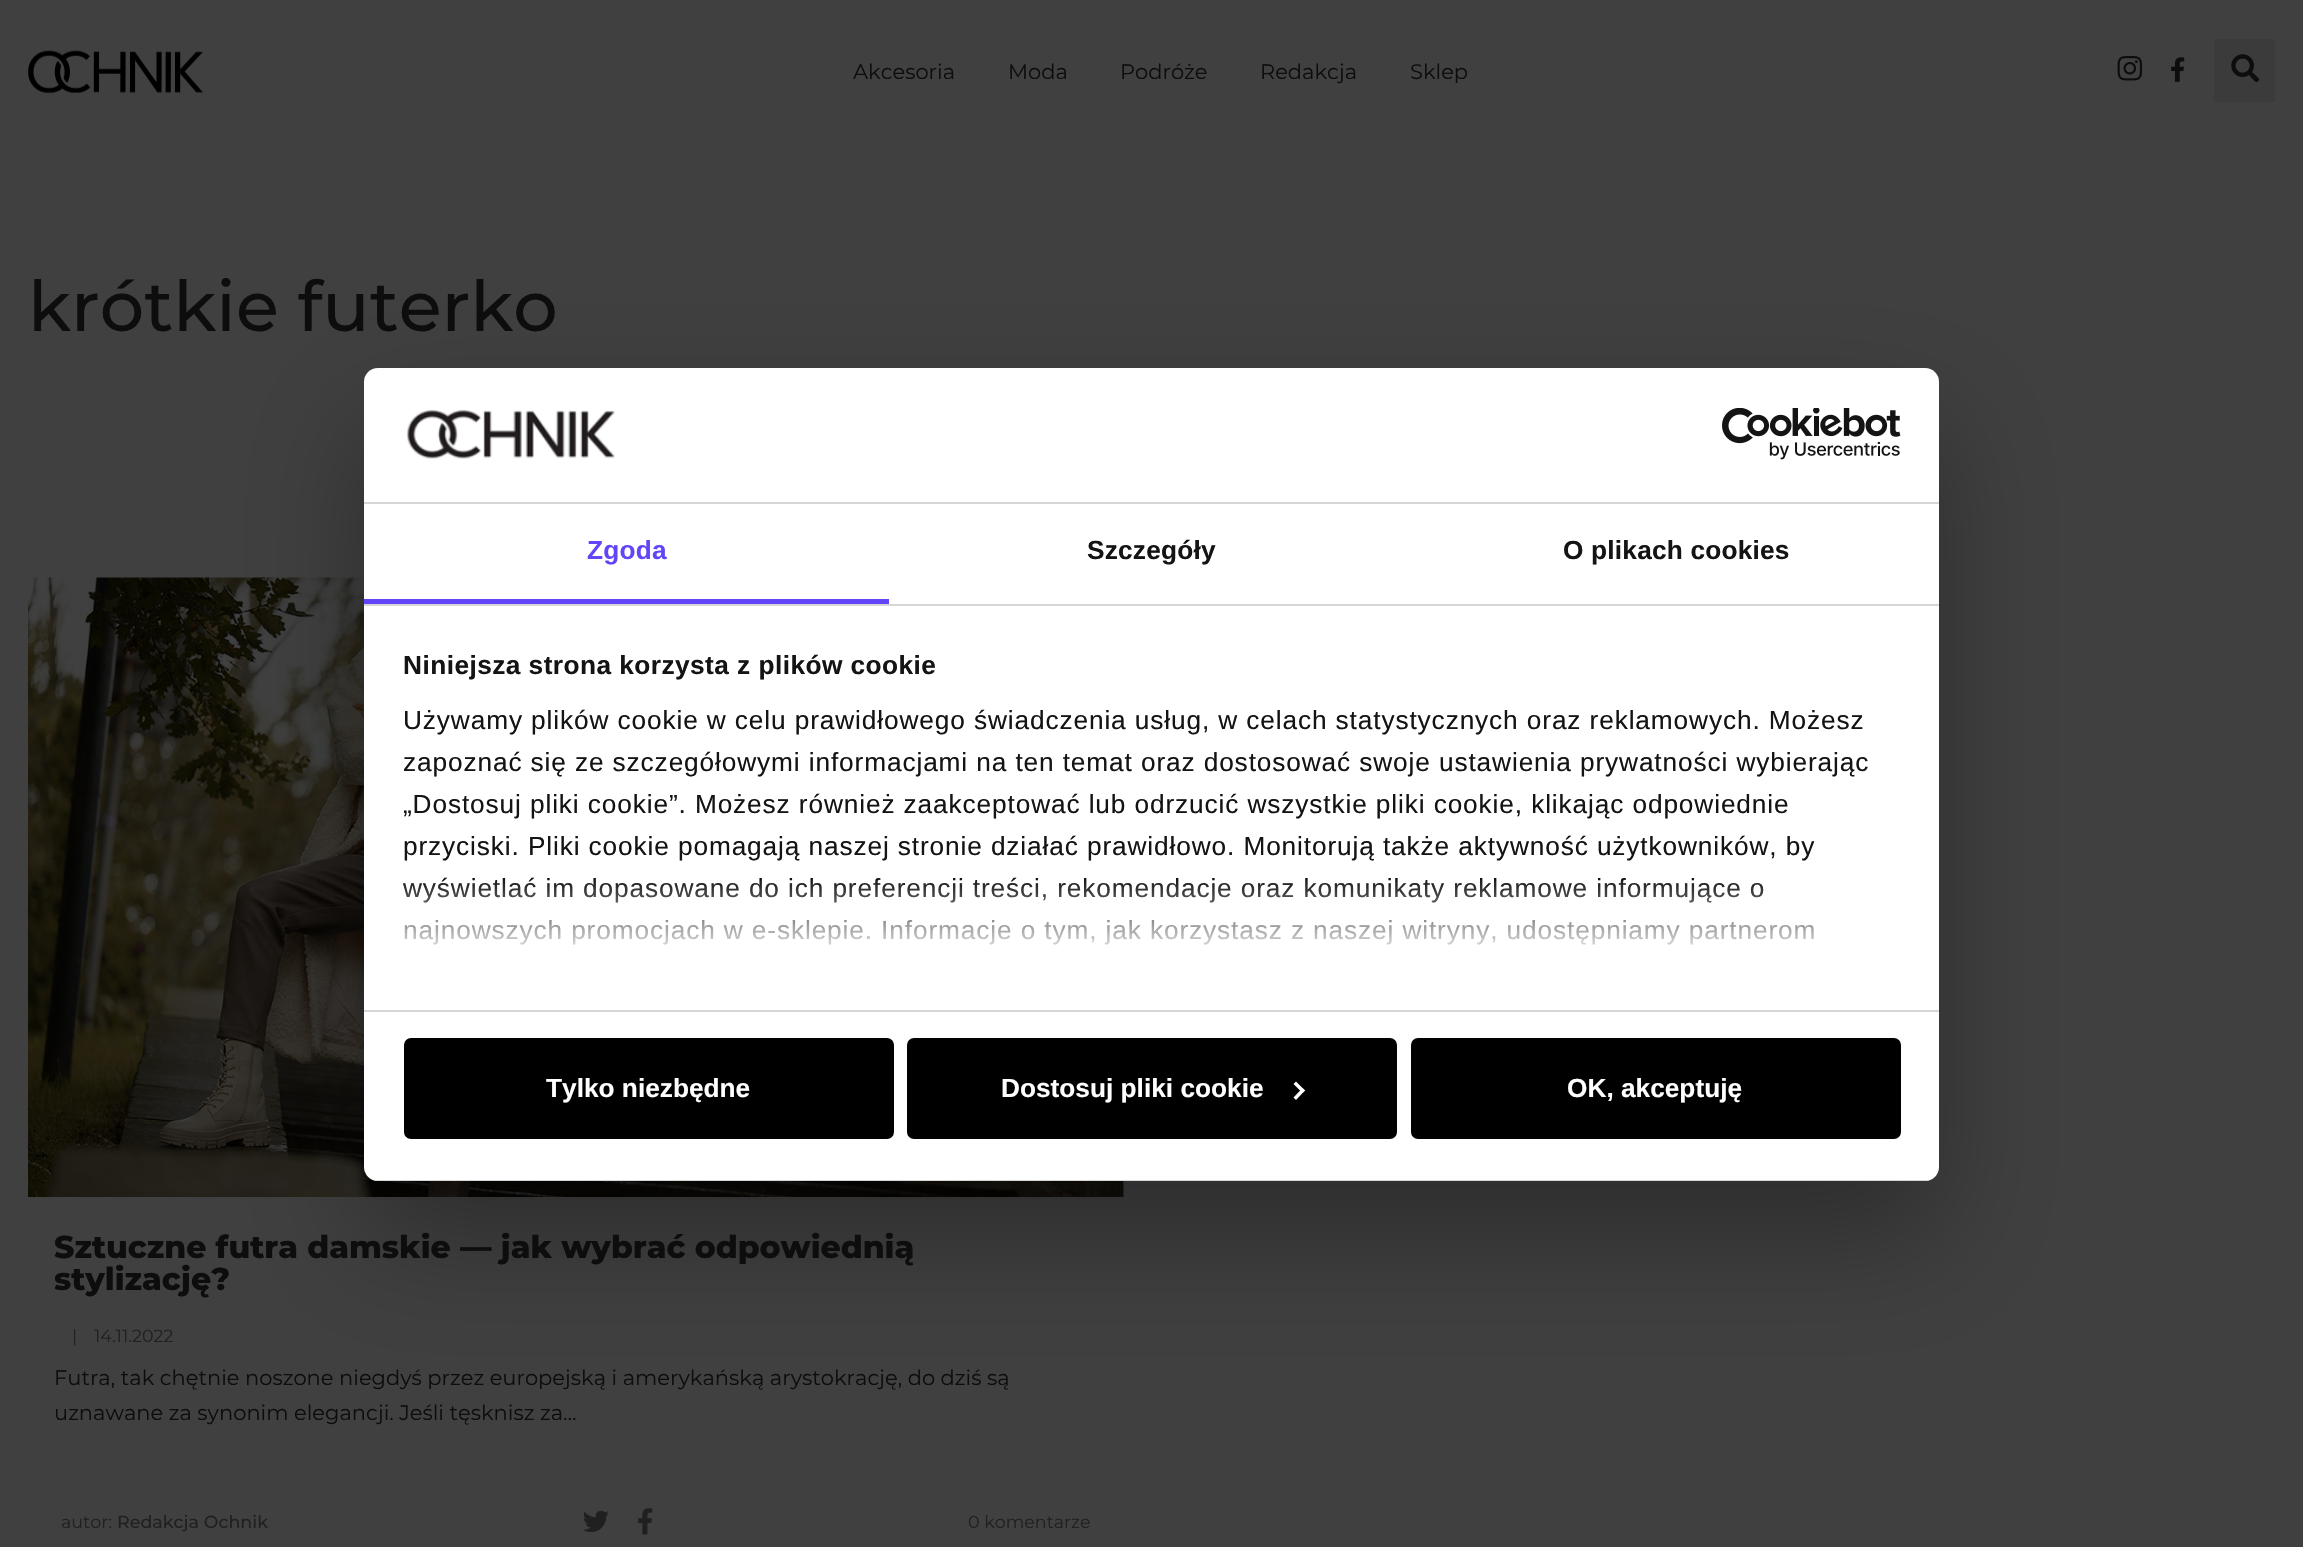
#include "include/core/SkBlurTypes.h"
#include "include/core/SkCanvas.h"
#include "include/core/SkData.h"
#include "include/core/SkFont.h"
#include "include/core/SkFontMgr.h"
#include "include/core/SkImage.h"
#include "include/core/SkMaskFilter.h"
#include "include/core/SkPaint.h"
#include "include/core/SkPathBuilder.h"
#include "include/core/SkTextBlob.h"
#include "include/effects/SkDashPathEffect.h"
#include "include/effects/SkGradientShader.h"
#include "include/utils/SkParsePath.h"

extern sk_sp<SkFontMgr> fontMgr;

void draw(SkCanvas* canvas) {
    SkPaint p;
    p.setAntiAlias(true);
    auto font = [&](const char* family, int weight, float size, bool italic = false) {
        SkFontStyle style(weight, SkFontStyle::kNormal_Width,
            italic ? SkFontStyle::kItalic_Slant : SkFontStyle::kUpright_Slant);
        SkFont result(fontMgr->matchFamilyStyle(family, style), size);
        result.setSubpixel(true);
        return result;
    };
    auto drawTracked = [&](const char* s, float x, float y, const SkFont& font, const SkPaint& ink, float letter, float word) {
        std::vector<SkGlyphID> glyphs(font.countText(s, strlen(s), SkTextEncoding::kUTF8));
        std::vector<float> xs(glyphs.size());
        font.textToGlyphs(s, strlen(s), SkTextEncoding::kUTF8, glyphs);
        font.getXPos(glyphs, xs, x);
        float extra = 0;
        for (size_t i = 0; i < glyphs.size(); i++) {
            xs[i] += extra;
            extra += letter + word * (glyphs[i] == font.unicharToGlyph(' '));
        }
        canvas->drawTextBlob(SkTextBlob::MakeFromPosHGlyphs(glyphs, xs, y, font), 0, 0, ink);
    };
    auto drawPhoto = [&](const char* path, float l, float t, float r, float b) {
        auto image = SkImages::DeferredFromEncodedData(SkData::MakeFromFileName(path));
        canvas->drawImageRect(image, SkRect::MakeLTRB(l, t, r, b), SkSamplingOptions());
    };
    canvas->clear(0xFF404040);
    drawPhoto("media/1.png", 28, 50, 203, 93);
    auto font1 = font("Montserrat", 400, 21);
    p.setColor(0xFF0D0D0D);
    {
        const struct { const char* s; float x, y; } items[] = {
            {"Akcesoria", 853, 79},
            {"Moda", 1008, 79},
            {"Podróże", 1120, 79},
            {"Redakcja", 1260, 79},
            {"Sklep", 1410, 79},
        };
        for (auto [s, x, y] : items) {
            canvas->drawString(s, x, y, font1, p);
        }
    }
    drawPhoto("media/2.png", 2117, 56, 2143, 81);
    drawPhoto("media/3.png", 2171, 57, 2185, 82);
    p.setColor(0xFF3B3B3B);
    canvas->drawRect(SkRect::MakeLTRB(2214, 39, 2275, 102), p);
    drawPhoto("media/4.png", 2231, 54, 2260, 83);
    auto font2 = font("Montserrat", 500, 70);
    p.setColor(0xFF0D0D0D);
    canvas->drawString("krótkie futerko", 28, 331, font2, p);
    drawPhoto("media/7.png", 28, 577, 1124, 1197);
    p.setColor(0x4D000000);
    p.setMaskFilter(SkMaskFilter::MakeBlur(kNormal_SkBlurStyle, 59.5f));
    canvas->drawRoundRect(SkRect::MakeLTRB(364, 424, 1939, 1237), 14, 14, p);
    p.setMaskFilter(nullptr);
    p.setColor(0xFFFFFFFF);
    canvas->drawRoundRect(SkRect::MakeLTRB(364, 368, 1939, 1181), 14, 14, p);
    p.setColor(0xFFD6D6D6);
    canvas->drawRect(SkRect::MakeLTRB(364, 502, 1939, 504), p);
    drawPhoto("media/5.png", 406, 409, 615, 459);
    drawPhoto("media/6.png", 1722, 408, 1901, 460);
    canvas->drawRect(SkRect::MakeLTRB(364, 604, 1939, 606), p);
    p.setColor(0xFF6345F9);
    canvas->drawRect(SkRect::MakeLTRB(364, 599, 889, 604), p);
    auto font3 = font("Liberation Sans", 700, 26.25f);
    drawTracked("Zgoda", 587, 559, font3, p, 0.2f, 0);
    p.setColor(0xFF141414);
    drawTracked("Szczegóły", 1087, 559, font3, p, 0.2f, 0);
    drawTracked("O plikach cookies", 1563, 559, font3, p, 0.2f, 0);
    p.setColor(0xFFD6D6D6);
    canvas->drawRect(SkRect::MakeLTRB(364, 1010, 1939, 1012), p);
    p.setColor(0xFF141414);
    drawTracked("Niniejsza strona korzysta z plików cookie", 403, 674, font3, p, 0.45f, 0);
    auto font4 = font("Liberation Sans", 400, 26.25f);
    {
        const struct { const char* s; float x, y; } items[] = {
            {"Używamy plików cookie w celu prawidłowego świadczenia usług, w celach statystycznych oraz reklamowych. Możesz", 403, 729},
            {"zapoznać się ze szczegółowymi informacjami na ten temat oraz dostosować swoje ustawienia prywatności wybierając", 403, 771},
            {"„Dostosuj pliki cookie”. Możesz również zaakceptować lub odrzucić wszystkie pliki cookie, klikając odpowiednie", 403, 813},
            {"przyciski. Pliki cookie pomagają naszej stronie działać prawidłowo. Monitorują także aktywność użytkowników, by", 403, 855},
            {"wyświetlać im dopasowane do ich preferencji treści, rekomendacje oraz komunikaty reklamowe informujące o", 403, 897},
            {"najnowszych promocjach w e-sklepie. Informacje o tym, jak korzystasz z naszej witryny, udostępniamy partnerom", 403, 939},
        };
        for (auto [s, x, y] : items) {
            drawTracked(s, x, y, font4, p, 0.88f, 0);
        }
    }
    {
        const SkColor colors[] = {0xFFFFFFFF, 0xCCFFFFFF, 0x00FFFFFF};
        const float stops[] = {0, 0.5f, 1};
        const SkPoint ends[] = {{1134, 1009}, {1134, 878}};
        p.setShader(SkGradientShader::MakeLinear(ends, colors, stops, 3, SkTileMode::kClamp));
        p.setAlpha(255);
    }
    canvas->drawRect(SkRect::MakeLTRB(403, 880, 1814, 945), p);
    canvas->save();
    canvas->clipPath(SkPathBuilder().moveTo(378, 368).lineTo(1925, 368).cubicTo(1932.5f, 368, 1939, 374.5f, 1939, 382).lineTo(1939, 1167).cubicTo(1939, 1174.5f, 1932.5f, 1181, 1925, 1181).lineTo(378, 1181).cubicTo(370.5f, 1181, 364, 1174.5f, 364, 1167).lineTo(364, 382).cubicTo(364, 374.5f, 370.5f, 368, 378, 368).close().detach(), true);
    p.setShader(nullptr);
    p.setColor(0xFFD6D6D6);
    canvas->drawRect(SkRect::MakeLTRB(373, 1180, 1930, 1181), p);
    canvas->restore();
    p.setColor(0xFF000000);
    canvas->drawRoundRect(SkRect::MakeLTRB(406, 1040, 892, 1137), 5, 5, p);
    p.setStyle(SkPaint::kStroke_Style);
    p.setStrokeWidth(4);
    canvas->drawRoundRect(SkRect::MakeLTRB(406, 1040, 892, 1137), 5, 5, p);
    p.setStyle(SkPaint::kFill_Style);
    p.setColor(0xFFFFFFFF);
    canvas->drawString("Tylko niezbędne", 546, 1097, font3, p);
    p.setColor(0xFF000000);
    canvas->drawRoundRect(SkRect::MakeLTRB(909, 1040, 1395, 1137), 5, 5, p);
    p.setStyle(SkPaint::kStroke_Style);
    canvas->drawRoundRect(SkRect::MakeLTRB(909, 1040, 1395, 1137), 5, 5, p);
    p.setStyle(SkPaint::kFill_Style);
    p.setColor(0xFFFFFFFF);
    canvas->drawString("Dostosuj pliki cookie", 1001, 1097, font3, p);
    canvas->drawPath(SkPathBuilder().moveTo(1296, 1081.5f).lineTo(1305, 1090.5f).lineTo(1302.5f, 1093).lineTo(1293.5f, 1084).close().detach(), p);
    canvas->drawPath(SkPathBuilder().moveTo(1302.5f, 1088).lineTo(1305, 1090.5f).lineTo(1296, 1100).lineTo(1293.5f, 1097.5f).close().detach(), p);
    p.setColor(0xFF000000);
    canvas->drawRoundRect(SkRect::MakeLTRB(1413, 1040, 1899, 1137), 5, 5, p);
    p.setStyle(SkPaint::kStroke_Style);
    canvas->drawRoundRect(SkRect::MakeLTRB(1413, 1040, 1899, 1137), 5, 5, p);
    p.setStyle(SkPaint::kFill_Style);
    p.setColor(0xFFFFFFFF);
    canvas->drawString("OK, akceptuję", 1567, 1097, font3, p);
    auto font5 = font("Montserrat", 800, 31.5f);
    p.setColor(0xFF0D0D0D);
    canvas->drawString("Sztuczne futra damskie — jak wybrać odpowiednią", 54, 1258, font5, p);
    canvas->drawString("stylizację?", 54, 1290, font5, p);
    auto font6 = font("Montserrat", 400, 17.5f);
    p.setColor(0xFF202020);
    canvas->drawString("|", 72, 1342, font6, p);
    canvas->drawString("14.11.2022", 94, 1342, font6, p);
    p.setColor(0xFF0D0D0D);
    canvas->drawString("Futra, tak chętnie noszone niegdyś przez europejską i amerykańską arystokrację, do dziś są", 54, 1385, font1, p);
    canvas->drawString("uznawane za synonim elegancji. Jeśli tęsknisz za…", 54, 1420, font1, p);
    p.setColor(0xFF202020);
    canvas->drawString("autor:", 61, 1528, font6, p);
    auto font7 = font("Montserrat", 500, 17.5f);
    canvas->drawString("Redakcja Ochnik", 117, 1528, font7, p);
    drawPhoto("media/8.png", 583, 1510, 609, 1533);
    drawPhoto("media/9.png", 638, 1508, 653, 1535);
    canvas->drawString("0 komentarze", 968, 1528, font6, p);
}
